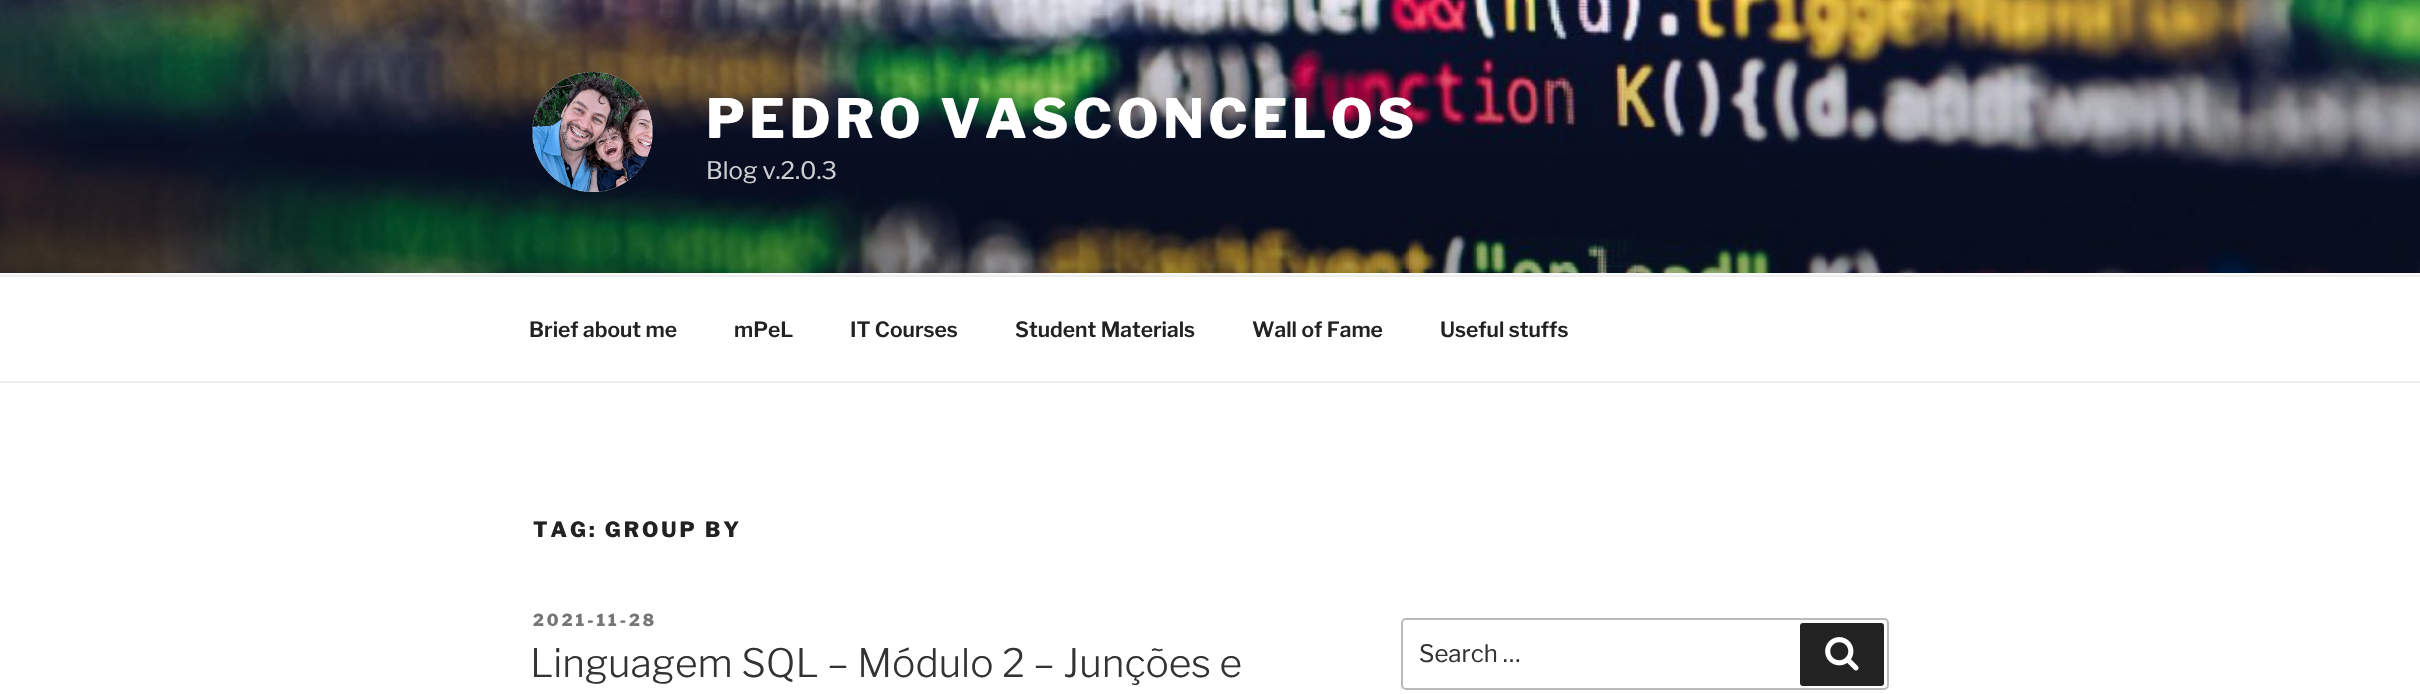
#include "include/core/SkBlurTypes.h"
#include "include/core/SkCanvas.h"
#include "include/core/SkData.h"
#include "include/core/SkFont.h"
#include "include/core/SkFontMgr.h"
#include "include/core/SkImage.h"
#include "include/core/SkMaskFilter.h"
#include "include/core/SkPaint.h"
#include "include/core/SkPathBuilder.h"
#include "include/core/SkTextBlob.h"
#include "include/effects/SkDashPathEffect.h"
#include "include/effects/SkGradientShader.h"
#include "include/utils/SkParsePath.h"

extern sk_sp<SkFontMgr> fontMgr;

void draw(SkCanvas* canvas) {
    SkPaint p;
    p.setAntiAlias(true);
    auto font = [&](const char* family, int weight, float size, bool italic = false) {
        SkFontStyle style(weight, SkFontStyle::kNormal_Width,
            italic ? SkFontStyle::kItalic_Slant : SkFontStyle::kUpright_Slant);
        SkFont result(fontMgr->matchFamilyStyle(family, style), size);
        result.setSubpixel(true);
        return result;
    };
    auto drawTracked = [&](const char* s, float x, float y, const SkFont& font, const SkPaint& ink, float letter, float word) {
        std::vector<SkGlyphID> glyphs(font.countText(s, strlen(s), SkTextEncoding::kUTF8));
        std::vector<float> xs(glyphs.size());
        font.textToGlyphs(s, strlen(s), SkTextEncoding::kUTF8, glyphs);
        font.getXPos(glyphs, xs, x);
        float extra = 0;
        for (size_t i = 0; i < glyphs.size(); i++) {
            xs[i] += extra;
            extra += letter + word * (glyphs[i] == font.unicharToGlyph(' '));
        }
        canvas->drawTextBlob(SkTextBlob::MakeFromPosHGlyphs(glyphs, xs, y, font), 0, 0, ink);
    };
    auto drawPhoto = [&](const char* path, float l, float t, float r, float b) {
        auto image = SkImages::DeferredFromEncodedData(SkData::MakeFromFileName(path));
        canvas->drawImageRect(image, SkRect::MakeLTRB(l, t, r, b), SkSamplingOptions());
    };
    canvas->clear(0xFFFFFFFF);
    p.setColor(0xFFFAFAFA);
    canvas->drawRect(SkRect::MakeLTRB(0, 273, 2420, 275), p);
    drawPhoto("media/1.png", 0, 0, 2420, 273);
    drawPhoto("media/2.png", 532, 72, 653, 192);
    auto font1 = font("Libre Franklin", 100, 54);
    p.setColor(0xFFFFFFFF);
    drawTracked("PEDRO VASCONCELOS", 706, 138, font1, p, 4.3f, 0);
    auto font2 = font("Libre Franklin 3", 100, 24);
    p.setColor(0xFFCECFD3);
    canvas->drawString("Blog v.2.0.3", 706, 179, font2, p);
    p.setColor(0xFFEEEEEE);
    canvas->drawRect(SkRect::MakeLTRB(0, 275, 2420, 277), p);
    canvas->drawRect(SkRect::MakeLTRB(0, 381, 2420, 383), p);
    auto font3 = font("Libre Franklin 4", 100, 21);
    p.setColor(0xFF222222);
    {
        const struct { const char* s; float x, y; } items[] = {
            {"Brief about me", 529, 337},
            {"mPeL", 734, 337},
            {"IT Courses", 850, 337},
            {"Student Materials", 1015, 337},
            {"Wall of Fame", 1252, 337},
            {"Useful stuffs", 1440, 337},
        };
        for (auto [s, x, y] : items) {
            canvas->drawString(s, x, y, font3, p);
        }
    }
    auto font4 = font("Libre Franklin", 100, 21);
    drawTracked("TAG: GROUP BY", 533, 537, font4, p, 3, 0);
    auto font5 = font("Libre Franklin", 100, 16.5f);
    p.setColor(0xFF767676);
    drawTracked("2021-11-28", 533, 626, font5, p, 3, 0);
    auto font6 = font("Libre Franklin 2", 100, 39);
    p.setColor(0xFF333333);
    canvas->drawString("Linguagem SQL – Módulo 2 – Junções e", 530, 677, font6, p);
    p.setStyle(SkPaint::kStroke_Style);
    p.setStrokeWidth(2);
    p.setColor(0xFFBBBBBB);
    canvas->drawRoundRect(SkRect::MakeLTRB(1402, 619, 1888, 689), 4, 4, p);
    p.setStyle(SkPaint::kFill_Style);
    p.setColor(0xFF333333);
    canvas->drawString("Search …", 1419, 662, font2, p);
    p.setColor(0xFF222222);
    canvas->drawRoundRect(SkRect::MakeLTRB(1800, 623, 1884, 686), 3, 3, p);
    drawPhoto("media/3.png", 1825, 637, 1859, 671);
}
